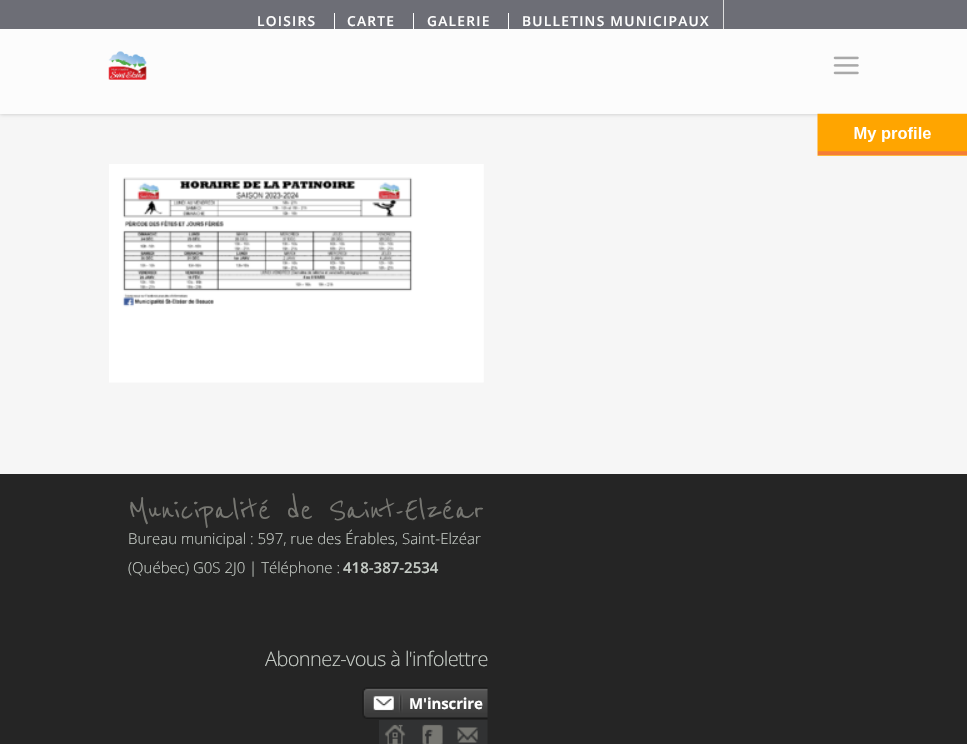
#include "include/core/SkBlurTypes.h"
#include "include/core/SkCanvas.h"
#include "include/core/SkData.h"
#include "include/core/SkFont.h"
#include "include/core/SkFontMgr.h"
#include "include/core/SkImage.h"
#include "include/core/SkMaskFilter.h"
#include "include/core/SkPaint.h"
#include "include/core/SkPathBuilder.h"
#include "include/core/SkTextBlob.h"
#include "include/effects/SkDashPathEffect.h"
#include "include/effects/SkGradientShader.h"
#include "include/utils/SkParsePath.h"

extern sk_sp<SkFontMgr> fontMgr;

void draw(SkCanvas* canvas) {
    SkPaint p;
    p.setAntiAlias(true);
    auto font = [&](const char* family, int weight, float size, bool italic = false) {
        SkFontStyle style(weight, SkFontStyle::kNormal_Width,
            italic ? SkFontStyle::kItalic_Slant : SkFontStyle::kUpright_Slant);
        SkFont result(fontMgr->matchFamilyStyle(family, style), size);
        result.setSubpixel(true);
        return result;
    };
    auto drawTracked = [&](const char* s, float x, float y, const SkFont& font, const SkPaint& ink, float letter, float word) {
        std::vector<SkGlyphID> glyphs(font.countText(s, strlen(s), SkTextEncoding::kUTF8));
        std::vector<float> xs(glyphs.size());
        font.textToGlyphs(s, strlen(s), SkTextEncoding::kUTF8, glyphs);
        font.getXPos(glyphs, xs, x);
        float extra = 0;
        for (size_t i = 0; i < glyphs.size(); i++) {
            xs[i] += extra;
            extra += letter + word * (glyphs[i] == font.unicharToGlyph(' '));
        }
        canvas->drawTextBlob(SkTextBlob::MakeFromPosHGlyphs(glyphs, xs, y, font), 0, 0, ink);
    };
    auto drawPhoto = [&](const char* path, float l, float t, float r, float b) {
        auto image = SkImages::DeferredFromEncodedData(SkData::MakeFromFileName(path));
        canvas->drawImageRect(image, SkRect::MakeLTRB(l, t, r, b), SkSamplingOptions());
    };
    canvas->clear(0xFF252525);
    p.setColor(0xFFF6F6F6);
    canvas->drawRect(SkRect::MakeLTRB(0, 114, 967, 474), p);
    p.setColor(0x38000000);
    p.setMaskFilter(SkMaskFilter::MakeBlur(kNormal_SkBlurStyle, 2));
    canvas->drawRect(SkRect::MakeLTRB(0, 29, 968, 114), p);
    p.setMaskFilter(nullptr);
    p.setColor(0xFF6D6E76);
    canvas->drawRect(SkRect::MakeLTRB(0, 0, 967, 29), p);
    auto font1 = font("Open Sans", 600, 13.75f);
    p.setColor(0xFFFFFFFF);
    drawTracked("LOISIRS", 257, 26, font1, p, 1.25f, 0);
    canvas->drawRect(SkRect::MakeLTRB(334, 13, 335, 29), p);
    drawTracked("CARTE", 347, 26, font1, p, 1.25f, 0);
    canvas->drawRect(SkRect::MakeLTRB(413, 13, 414, 29), p);
    drawTracked("GALERIE", 427, 26, font1, p, 1.25f, 0);
    p.setColor(0xFFDDDDDD);
    canvas->drawRect(SkRect::MakeLTRB(723, 0, 724, 29), p);
    p.setColor(0xFFFFFFFF);
    canvas->drawRect(SkRect::MakeLTRB(508, 13, 509, 29), p);
    drawTracked("BULLETINS MUNICIPAUX", 522, 26, font1, p, 1.25f, 0);
    p.setColor(0xFFFCFCFC);
    canvas->drawRect(SkRect::MakeLTRB(0, 29, 967, 114), p);
    drawPhoto("media/1.png", 108, 51, 147, 80);
    drawPhoto("media/2.png", 833, 56, 859, 75);
    drawPhoto("media/3.png", 817, 113, 967, 156);
    drawPhoto("media/4.png", 109, 164, 484, 383);
    auto font2 = font("Reenie Beanie", 500, 37.5f);
    p.setColor(0xFF777772);
    canvas->drawString("Municipalité de Saint-Elzéar", 128, 520, font2, p);
    auto font3 = font("Open Sans", 300, 15);
    p.setColor(0xFFC6CCC6);
    canvas->drawString("Bureau municipal : 597, rue des Érables, Saint-Elzéar", 128, 544, font3, p);
    canvas->drawString("(Québec) G0S 2J0 | Téléphone :", 128, 573, font3, p);
    auto font4 = font("Open Sans", 600, 15);
    canvas->drawString("418-387-2534", 343, 573, font4, p);
    auto font5 = font("Open Sans", 300, 20);
    drawTracked("Abonnez-vous à l'infolettre", 265, 666, font5, p, -0.6f, 0);
    drawPhoto("media/5.png", 362, 687, 488, 719);
    auto font6 = font("Open Sans", 700, 15);
    p.setColor(0xFFFFFFFF);
    drawTracked("M'inscrire", 409, 709, font6, p, -0.1f, 0);
    drawPhoto("media/6.png", 379, 720, 415, 744);
    drawPhoto("media/7.png", 415, 720, 450, 744);
    drawPhoto("media/8.png", 450, 720, 488, 744);
}
